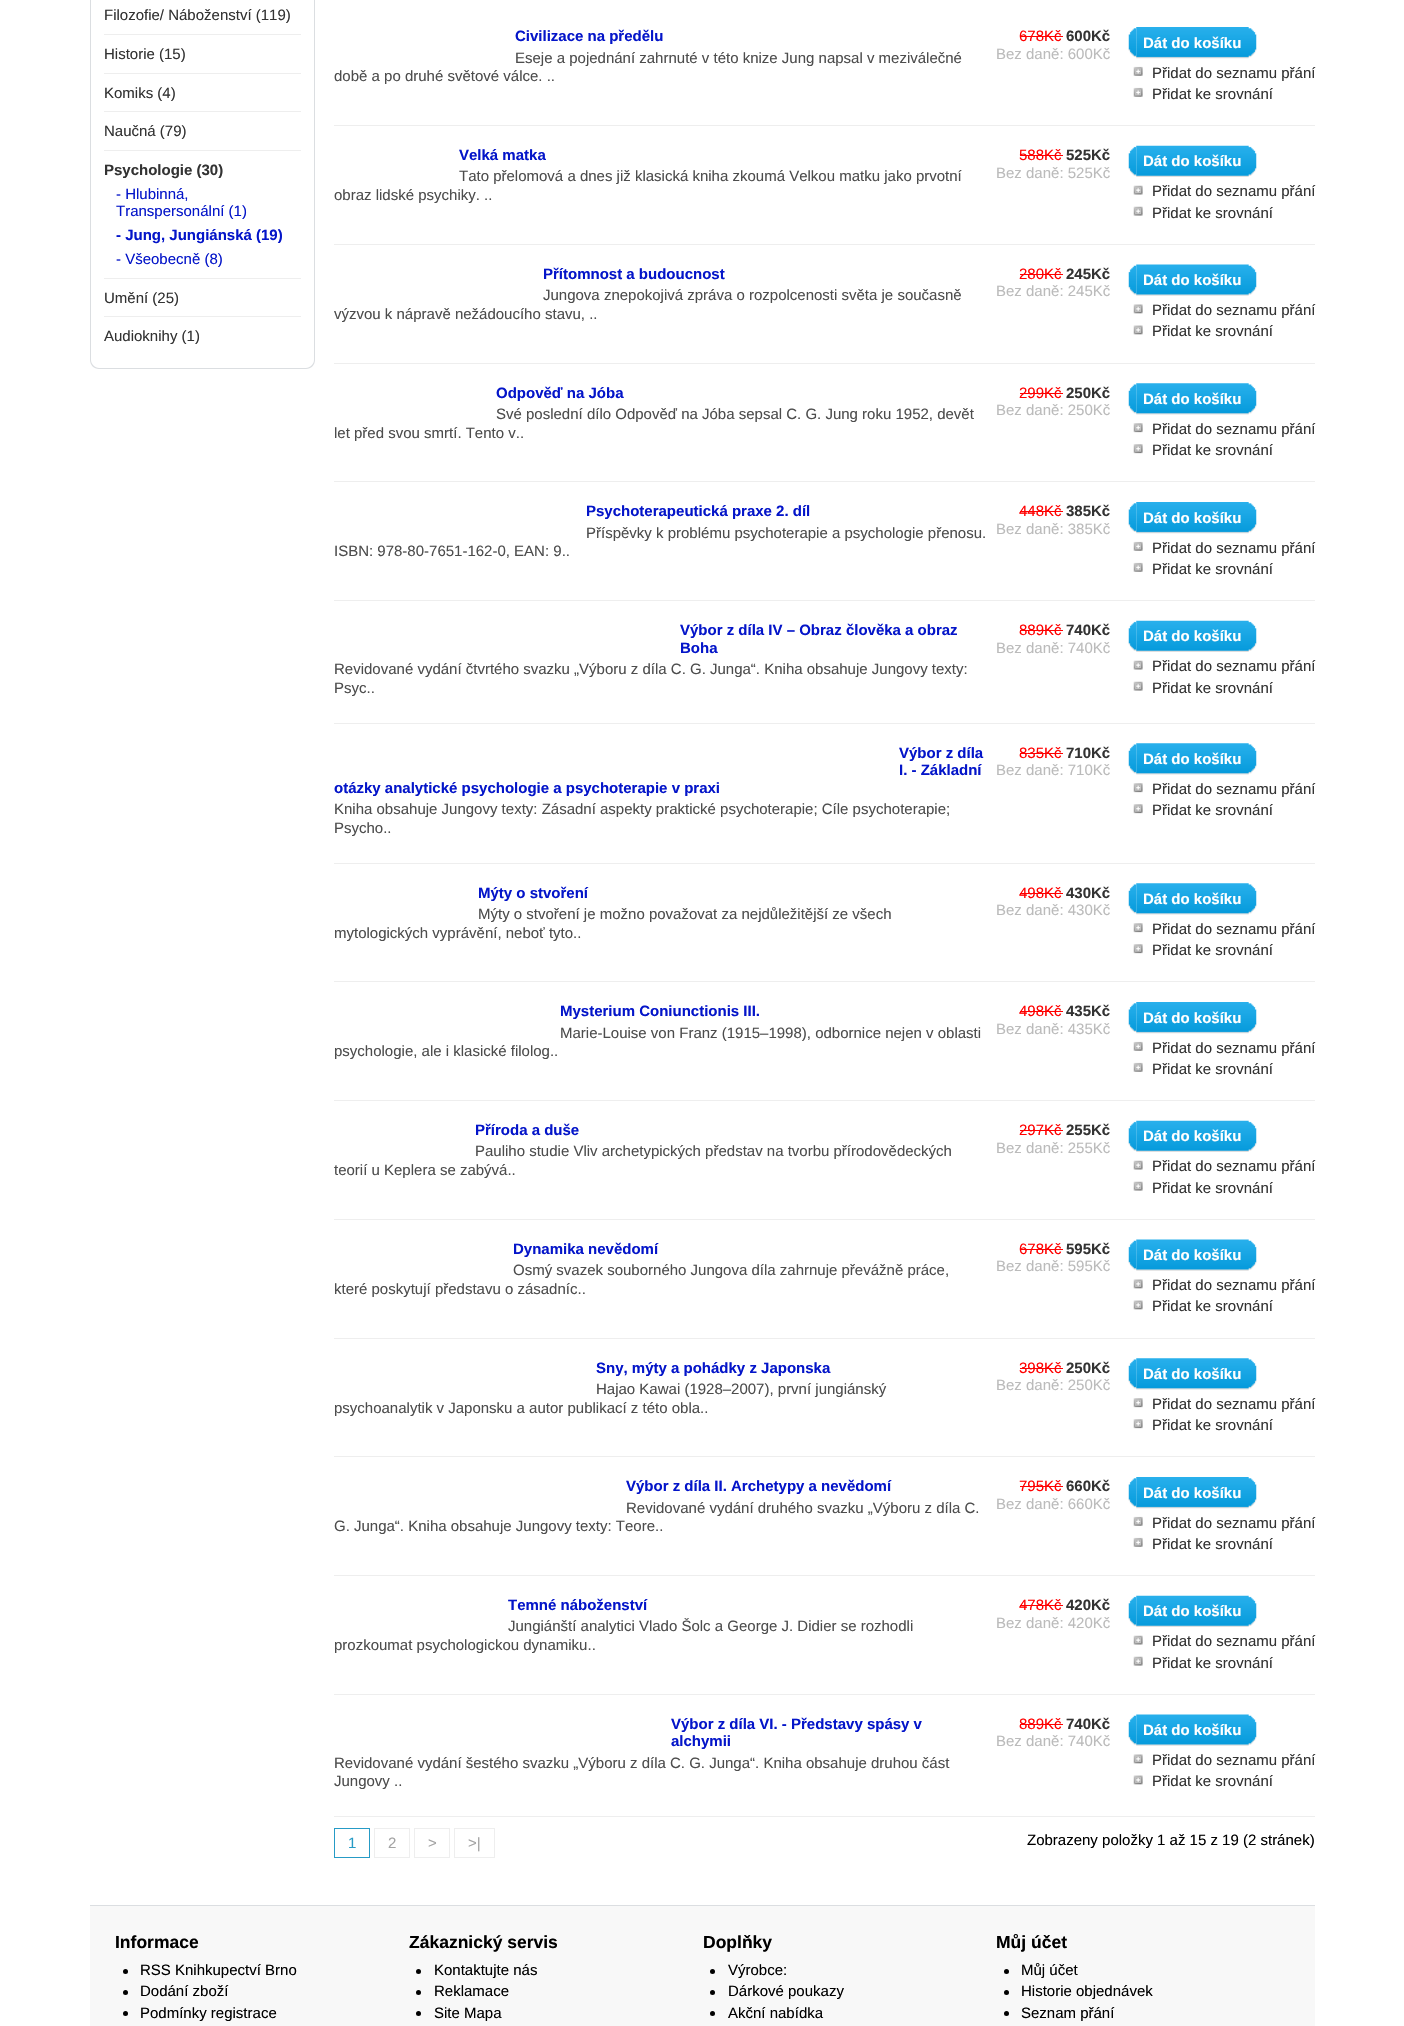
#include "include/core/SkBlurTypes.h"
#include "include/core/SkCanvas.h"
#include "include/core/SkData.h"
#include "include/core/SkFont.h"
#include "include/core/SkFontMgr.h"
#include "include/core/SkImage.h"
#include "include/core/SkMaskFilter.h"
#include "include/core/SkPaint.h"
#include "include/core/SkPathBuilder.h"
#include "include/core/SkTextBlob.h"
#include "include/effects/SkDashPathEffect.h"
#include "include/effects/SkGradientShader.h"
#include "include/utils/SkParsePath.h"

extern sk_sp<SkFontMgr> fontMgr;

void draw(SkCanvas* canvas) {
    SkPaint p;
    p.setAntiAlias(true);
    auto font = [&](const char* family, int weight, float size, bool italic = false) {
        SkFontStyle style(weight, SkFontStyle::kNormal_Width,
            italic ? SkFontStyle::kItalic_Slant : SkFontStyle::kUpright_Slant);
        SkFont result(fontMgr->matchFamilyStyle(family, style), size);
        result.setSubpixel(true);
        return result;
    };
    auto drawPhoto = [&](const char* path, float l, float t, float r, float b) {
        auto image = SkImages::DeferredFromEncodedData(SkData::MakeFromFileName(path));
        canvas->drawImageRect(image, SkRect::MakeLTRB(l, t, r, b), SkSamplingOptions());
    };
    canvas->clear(0xFFFFFFFF);
    p.setColor(0xFFDBDEE1);
    canvas->drawPath(SkPathBuilder(SkPathFillType::kEvenOdd).moveTo(90, -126).lineTo(315, -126).lineTo(315, 360).cubicTo(315, 365, 311, 369, 306, 369).lineTo(99, 369).cubicTo(94, 369, 90, 365, 90, 360).close().moveTo(91, -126).lineTo(314, -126).lineTo(314, 360).cubicTo(314, 364, 310, 368, 306, 368).lineTo(99, 368).cubicTo(95, 368, 91, 364, 91, 360).close().detach(), p);
    auto font1 = font("Liberation Sans", 400, 15);
    p.setColor(0xFF333333);
    canvas->drawString("Filozofie/ Náboženství (119)", 104, 20, font1, p);
    p.setColor(0xFFEEEEEE);
    canvas->drawRect(SkRect::MakeLTRB(104, 34, 301, 35), p);
    p.setColor(0xFF333333);
    canvas->drawString("Historie (15)", 104, 59, font1, p);
    p.setColor(0xFFEEEEEE);
    canvas->drawRect(SkRect::MakeLTRB(104, 73, 301, 74), p);
    p.setColor(0xFF333333);
    canvas->drawString("Komiks (4)", 104, 98, font1, p);
    p.setColor(0xFFEEEEEE);
    canvas->drawRect(SkRect::MakeLTRB(104, 111, 301, 112), p);
    p.setColor(0xFF333333);
    canvas->drawString("Naučná (79)", 104, 136, font1, p);
    p.setColor(0xFFEEEEEE);
    canvas->drawRect(SkRect::MakeLTRB(104, 150, 301, 151), p);
    auto font2 = font("Liberation Sans", 700, 15);
    p.setColor(0xFF333333);
    canvas->drawString("Psychologie (30)", 104, 175, font2, p);
    p.setColor(0xFF0415C9);
    canvas->drawString("- Hlubinná,", 116, 199, font1, p);
    canvas->drawString("Transpersonální (1)", 116, 216, font1, p);
    canvas->drawString("- Jung, Jungiánská (19)", 116, 240, font2, p);
    canvas->drawString("- Všeobecně (8)", 116, 264, font1, p);
    p.setColor(0xFFEEEEEE);
    canvas->drawRect(SkRect::MakeLTRB(104, 278, 301, 279), p);
    p.setColor(0xFF333333);
    canvas->drawString("Umění (25)", 104, 303, font1, p);
    p.setColor(0xFFEEEEEE);
    canvas->drawRect(SkRect::MakeLTRB(104, 316, 301, 317), p);
    p.setColor(0xFF333333);
    canvas->drawString("Audioknihy (1)", 104, 341, font1, p);
    p.setColor(0xFF0415C9);
    canvas->drawString("Civilizace na předělu", 515, 41, font2, p);
    p.setColor(0xFFFF0000);
    canvas->drawString("678Kč", 1019, 41, font1, p);
    canvas->drawRect(SkRect::MakeLTRB(1020, 36, 1063, 37), p);
    p.setColor(0xFF333333);
    canvas->drawString("600Kč", 1066, 41, font2, p);
    p.setColor(0xFFBBBBBB);
    canvas->drawString("Bez daně: 600Kč", 996, 59, font1, p);
    p.setColor(0xFF4D4D4D);
    canvas->drawString("Eseje a pojednání zahrnuté v této knize Jung napsal v meziválečné", 515, 63, font1, p);
    canvas->drawString("době a po druhé světové válce. ..", 334, 81, font1, p);
    drawPhoto("media/1.png", 1128, 28, 1137, 57);
    drawPhoto("media/2.png", 1136, 27, 1257, 59);
    p.setColor(0xFFFFFFFF);
    canvas->drawString("Dát do košíku", 1143, 48, font2, p);
    drawPhoto("media/3.png", 1133, 66, 1143, 76);
    p.setColor(0xFF333333);
    canvas->drawString("Přidat do seznamu přání", 1152, 78, font1, p);
    drawPhoto("media/4.png", 1133, 87, 1143, 97);
    canvas->drawString("Přidat ke srovnání", 1152, 99, font1, p);
    p.setColor(0xFFEEEEEE);
    canvas->drawRect(SkRect::MakeLTRB(334, 125, 1315, 126), p);
    p.setColor(0xFF0415C9);
    canvas->drawString("Velká matka", 459, 160, font2, p);
    p.setColor(0xFFFF0000);
    canvas->drawString("588Kč", 1019, 160, font1, p);
    canvas->drawRect(SkRect::MakeLTRB(1020, 155, 1063, 156), p);
    p.setColor(0xFF333333);
    canvas->drawString("525Kč", 1066, 160, font2, p);
    p.setColor(0xFFBBBBBB);
    canvas->drawString("Bez daně: 525Kč", 996, 178, font1, p);
    p.setColor(0xFF4D4D4D);
    canvas->drawString("Tato přelomová a dnes již klasická kniha zkoumá Velkou matku jako prvotní", 459, 181, font1, p);
    canvas->drawString("obraz lidské psychiky. ..", 334, 200, font1, p);
    drawPhoto("media/5.png", 1128, 146, 1137, 176);
    drawPhoto("media/6.png", 1136, 145, 1257, 177);
    p.setColor(0xFFFFFFFF);
    canvas->drawString("Dát do košíku", 1143, 166, font2, p);
    drawPhoto("media/7.png", 1133, 185, 1143, 195);
    p.setColor(0xFF333333);
    canvas->drawString("Přidat do seznamu přání", 1152, 196, font1, p);
    drawPhoto("media/8.png", 1133, 206, 1143, 216);
    canvas->drawString("Přidat ke srovnání", 1152, 218, font1, p);
    p.setColor(0xFFEEEEEE);
    canvas->drawRect(SkRect::MakeLTRB(334, 244, 1315, 245), p);
    p.setColor(0xFF0415C9);
    canvas->drawString("Přítomnost a budoucnost", 543, 279, font2, p);
    p.setColor(0xFFFF0000);
    canvas->drawString("280Kč", 1019, 279, font1, p);
    canvas->drawRect(SkRect::MakeLTRB(1020, 274, 1063, 275), p);
    p.setColor(0xFF333333);
    canvas->drawString("245Kč", 1066, 279, font2, p);
    p.setColor(0xFFBBBBBB);
    canvas->drawString("Bez daně: 245Kč", 996, 296, font1, p);
    p.setColor(0xFF4D4D4D);
    canvas->drawString("Jungova znepokojivá zpráva o rozpolcenosti světa je současně", 543, 300, font1, p);
    canvas->drawString("výzvou k nápravě nežádoucího stavu, ..", 334, 319, font1, p);
    drawPhoto("media/9.png", 1128, 265, 1137, 295);
    drawPhoto("media/10.png", 1136, 264, 1257, 296);
    p.setColor(0xFFFFFFFF);
    canvas->drawString("Dát do košíku", 1143, 285, font2, p);
    drawPhoto("media/11.png", 1133, 304, 1143, 314);
    p.setColor(0xFF333333);
    canvas->drawString("Přidat do seznamu přání", 1152, 315, font1, p);
    drawPhoto("media/12.png", 1133, 325, 1143, 335);
    canvas->drawString("Přidat ke srovnání", 1152, 336, font1, p);
    p.setColor(0xFFEEEEEE);
    canvas->drawRect(SkRect::MakeLTRB(334, 363, 1315, 364), p);
    p.setColor(0xFF0415C9);
    canvas->drawString("Odpověď na Jóba", 496, 398, font2, p);
    p.setColor(0xFFFF0000);
    canvas->drawString("299Kč", 1019, 398, font1, p);
    canvas->drawRect(SkRect::MakeLTRB(1020, 393, 1063, 394), p);
    p.setColor(0xFF333333);
    canvas->drawString("250Kč", 1066, 398, font2, p);
    p.setColor(0xFFBBBBBB);
    canvas->drawString("Bez daně: 250Kč", 996, 415, font1, p);
    p.setColor(0xFF4D4D4D);
    canvas->drawString("Své poslední dílo Odpověď na Jóba sepsal C. G. Jung roku 1952, devět", 496, 419, font1, p);
    canvas->drawString("let před svou smrtí. Tento v..", 334, 438, font1, p);
    drawPhoto("media/13.png", 1128, 384, 1137, 414);
    drawPhoto("media/14.png", 1136, 383, 1257, 415);
    p.setColor(0xFFFFFFFF);
    canvas->drawString("Dát do košíku", 1143, 404, font2, p);
    drawPhoto("media/15.png", 1133, 423, 1143, 433);
    p.setColor(0xFF333333);
    canvas->drawString("Přidat do seznamu přání", 1152, 434, font1, p);
    drawPhoto("media/15.png", 1133, 444, 1143, 454);
    canvas->drawString("Přidat ke srovnání", 1152, 455, font1, p);
    p.setColor(0xFFEEEEEE);
    canvas->drawRect(SkRect::MakeLTRB(334, 481, 1315, 482), p);
    p.setColor(0xFF0415C9);
    canvas->drawString("Psychoterapeutická praxe 2. díl", 586, 516, font2, p);
    p.setColor(0xFFFF0000);
    canvas->drawString("448Kč", 1019, 516, font1, p);
    canvas->drawRect(SkRect::MakeLTRB(1020, 511, 1063, 512), p);
    p.setColor(0xFF333333);
    canvas->drawString("385Kč", 1066, 516, font2, p);
    p.setColor(0xFFBBBBBB);
    canvas->drawString("Bez daně: 385Kč", 996, 534, font1, p);
    p.setColor(0xFF4D4D4D);
    canvas->drawString("Příspěvky k problému psychoterapie a psychologie přenosu.", 586, 538, font1, p);
    canvas->drawString("ISBN: 978-80-7651-162-0, EAN: 9..", 334, 556, font1, p);
    drawPhoto("media/1.png", 1128, 503, 1137, 532);
    drawPhoto("media/2.png", 1136, 502, 1257, 534);
    p.setColor(0xFFFFFFFF);
    canvas->drawString("Dát do košíku", 1143, 523, font2, p);
    drawPhoto("media/3.png", 1133, 541, 1143, 551);
    p.setColor(0xFF333333);
    canvas->drawString("Přidat do seznamu přání", 1152, 553, font1, p);
    drawPhoto("media/4.png", 1133, 562, 1143, 572);
    canvas->drawString("Přidat ke srovnání", 1152, 574, font1, p);
    p.setColor(0xFFEEEEEE);
    canvas->drawRect(SkRect::MakeLTRB(334, 600, 1315, 601), p);
    p.setColor(0xFF0415C9);
    canvas->drawString("Výbor z díla IV – Obraz člověka a obraz", 680, 635, font2, p);
    canvas->drawString("Boha", 680, 653, font2, p);
    p.setColor(0xFFFF0000);
    canvas->drawString("889Kč", 1019, 635, font1, p);
    canvas->drawRect(SkRect::MakeLTRB(1020, 630, 1063, 631), p);
    p.setColor(0xFF333333);
    canvas->drawString("740Kč", 1066, 635, font2, p);
    p.setColor(0xFFBBBBBB);
    canvas->drawString("Bez daně: 740Kč", 996, 653, font1, p);
    p.setColor(0xFF4D4D4D);
    canvas->drawString("Revidované vydání čtvrtého svazku „Výboru z díla C. G. Junga“. Kniha obsahuje Jungovy texty:", 334, 674, font1, p);
    canvas->drawString("Psyc..", 334, 693, font1, p);
    drawPhoto("media/5.png", 1128, 621, 1137, 651);
    drawPhoto("media/6.png", 1136, 620, 1257, 652);
    p.setColor(0xFFFFFFFF);
    canvas->drawString("Dát do košíku", 1143, 641, font2, p);
    drawPhoto("media/7.png", 1133, 660, 1143, 670);
    p.setColor(0xFF333333);
    canvas->drawString("Přidat do seznamu přání", 1152, 671, font1, p);
    drawPhoto("media/8.png", 1133, 681, 1143, 691);
    canvas->drawString("Přidat ke srovnání", 1152, 693, font1, p);
    p.setColor(0xFFEEEEEE);
    canvas->drawRect(SkRect::MakeLTRB(334, 723, 1315, 724), p);
    p.setColor(0xFF0415C9);
    {
        const struct { const char* s; float x, y; } items[] = {
            {"Výbor z díla", 899, 758},
            {"I. - Základní", 899, 775},
            {"otázky analytické psychologie a psychoterapie v praxi", 334, 793},
        };
        for (auto [s, x, y] : items) {
            canvas->drawString(s, x, y, font2, p);
        }
    }
    p.setColor(0xFFFF0000);
    canvas->drawString("835Kč", 1019, 758, font1, p);
    canvas->drawRect(SkRect::MakeLTRB(1020, 753, 1063, 754), p);
    p.setColor(0xFF333333);
    canvas->drawString("710Kč", 1066, 758, font2, p);
    p.setColor(0xFFBBBBBB);
    canvas->drawString("Bez daně: 710Kč", 996, 775, font1, p);
    p.setColor(0xFF4D4D4D);
    canvas->drawString("Kniha obsahuje Jungovy texty: Zásadní aspekty praktické psychoterapie; Cíle psychoterapie;", 334, 814, font1, p);
    canvas->drawString("Psycho..", 334, 833, font1, p);
    drawPhoto("media/13.png", 1128, 744, 1137, 774);
    drawPhoto("media/14.png", 1136, 743, 1257, 775);
    p.setColor(0xFFFFFFFF);
    canvas->drawString("Dát do košíku", 1143, 764, font2, p);
    drawPhoto("media/16.png", 1133, 783, 1143, 793);
    p.setColor(0xFF333333);
    canvas->drawString("Přidat do seznamu přání", 1152, 794, font1, p);
    drawPhoto("media/15.png", 1133, 804, 1143, 814);
    canvas->drawString("Přidat ke srovnání", 1152, 815, font1, p);
    p.setColor(0xFFEEEEEE);
    canvas->drawRect(SkRect::MakeLTRB(334, 863, 1315, 864), p);
    p.setColor(0xFF0415C9);
    canvas->drawString("Mýty o stvoření", 478, 898, font2, p);
    p.setColor(0xFFFF0000);
    canvas->drawString("498Kč", 1019, 898, font1, p);
    canvas->drawRect(SkRect::MakeLTRB(1020, 893, 1063, 894), p);
    p.setColor(0xFF333333);
    canvas->drawString("430Kč", 1066, 898, font2, p);
    p.setColor(0xFFBBBBBB);
    canvas->drawString("Bez daně: 430Kč", 996, 915, font1, p);
    p.setColor(0xFF4D4D4D);
    canvas->drawString("Mýty o stvoření je možno považovat za nejdůležitější ze všech", 478, 919, font1, p);
    canvas->drawString("mytologických vyprávění, neboť tyto..", 334, 938, font1, p);
    drawPhoto("media/13.png", 1128, 884, 1137, 914);
    drawPhoto("media/14.png", 1136, 883, 1257, 915);
    p.setColor(0xFFFFFFFF);
    canvas->drawString("Dát do košíku", 1143, 904, font2, p);
    drawPhoto("media/16.png", 1133, 923, 1143, 933);
    p.setColor(0xFF333333);
    canvas->drawString("Přidat do seznamu přání", 1152, 934, font1, p);
    drawPhoto("media/15.png", 1133, 944, 1143, 954);
    canvas->drawString("Přidat ke srovnání", 1152, 955, font1, p);
    p.setColor(0xFFEEEEEE);
    canvas->drawRect(SkRect::MakeLTRB(334, 981, 1315, 982), p);
    p.setColor(0xFF0415C9);
    canvas->drawString("Mysterium Coniunctionis III.", 560, 1016, font2, p);
    p.setColor(0xFFFF0000);
    canvas->drawString("498Kč", 1019, 1016, font1, p);
    canvas->drawRect(SkRect::MakeLTRB(1020, 1011, 1063, 1012), p);
    p.setColor(0xFF333333);
    canvas->drawString("435Kč", 1066, 1016, font2, p);
    p.setColor(0xFFBBBBBB);
    canvas->drawString("Bez daně: 435Kč", 996, 1034, font1, p);
    p.setColor(0xFF4D4D4D);
    canvas->drawString("Marie-Louise von Franz (1915–1998), odbornice nejen v oblasti", 560, 1038, font1, p);
    canvas->drawString("psychologie, ale i klasické filolog..", 334, 1056, font1, p);
    drawPhoto("media/1.png", 1128, 1003, 1137, 1032);
    drawPhoto("media/2.png", 1136, 1002, 1257, 1034);
    p.setColor(0xFFFFFFFF);
    canvas->drawString("Dát do košíku", 1143, 1023, font2, p);
    drawPhoto("media/3.png", 1133, 1041, 1143, 1051);
    p.setColor(0xFF333333);
    canvas->drawString("Přidat do seznamu přání", 1152, 1053, font1, p);
    drawPhoto("media/4.png", 1133, 1062, 1143, 1072);
    canvas->drawString("Přidat ke srovnání", 1152, 1074, font1, p);
    p.setColor(0xFFEEEEEE);
    canvas->drawRect(SkRect::MakeLTRB(334, 1100, 1315, 1101), p);
    p.setColor(0xFF0415C9);
    canvas->drawString("Příroda a duše", 475, 1135, font2, p);
    p.setColor(0xFFFF0000);
    canvas->drawString("297Kč", 1019, 1135, font1, p);
    canvas->drawRect(SkRect::MakeLTRB(1020, 1130, 1063, 1131), p);
    p.setColor(0xFF333333);
    canvas->drawString("255Kč", 1066, 1135, font2, p);
    p.setColor(0xFFBBBBBB);
    canvas->drawString("Bez daně: 255Kč", 996, 1153, font1, p);
    p.setColor(0xFF4D4D4D);
    canvas->drawString("Pauliho studie Vliv archetypických představ na tvorbu přírodovědeckých", 475, 1156, font1, p);
    canvas->drawString("teorií u Keplera se zabývá..", 334, 1175, font1, p);
    drawPhoto("media/5.png", 1128, 1121, 1137, 1151);
    drawPhoto("media/6.png", 1136, 1120, 1257, 1152);
    p.setColor(0xFFFFFFFF);
    canvas->drawString("Dát do košíku", 1143, 1141, font2, p);
    drawPhoto("media/7.png", 1133, 1160, 1143, 1170);
    p.setColor(0xFF333333);
    canvas->drawString("Přidat do seznamu přání", 1152, 1171, font1, p);
    drawPhoto("media/8.png", 1133, 1181, 1143, 1191);
    canvas->drawString("Přidat ke srovnání", 1152, 1193, font1, p);
    p.setColor(0xFFEEEEEE);
    canvas->drawRect(SkRect::MakeLTRB(334, 1219, 1315, 1220), p);
    p.setColor(0xFF0415C9);
    canvas->drawString("Dynamika nevědomí", 513, 1254, font2, p);
    p.setColor(0xFFFF0000);
    canvas->drawString("678Kč", 1019, 1254, font1, p);
    canvas->drawRect(SkRect::MakeLTRB(1020, 1249, 1063, 1250), p);
    p.setColor(0xFF333333);
    canvas->drawString("595Kč", 1066, 1254, font2, p);
    p.setColor(0xFFBBBBBB);
    canvas->drawString("Bez daně: 595Kč", 996, 1271, font1, p);
    p.setColor(0xFF4D4D4D);
    canvas->drawString("Osmý svazek souborného Jungova díla zahrnuje převážně práce,", 513, 1275, font1, p);
    canvas->drawString("které poskytují představu o zásadníc..", 334, 1294, font1, p);
    drawPhoto("media/9.png", 1128, 1240, 1137, 1270);
    drawPhoto("media/10.png", 1136, 1239, 1257, 1271);
    p.setColor(0xFFFFFFFF);
    canvas->drawString("Dát do košíku", 1143, 1260, font2, p);
    drawPhoto("media/11.png", 1133, 1279, 1143, 1289);
    p.setColor(0xFF333333);
    canvas->drawString("Přidat do seznamu přání", 1152, 1290, font1, p);
    drawPhoto("media/12.png", 1133, 1300, 1143, 1310);
    canvas->drawString("Přidat ke srovnání", 1152, 1311, font1, p);
    p.setColor(0xFFEEEEEE);
    canvas->drawRect(SkRect::MakeLTRB(334, 1338, 1315, 1339), p);
    p.setColor(0xFF0415C9);
    canvas->drawString("Sny, mýty a pohádky z Japonska", 596, 1373, font2, p);
    p.setColor(0xFFFF0000);
    canvas->drawString("398Kč", 1019, 1373, font1, p);
    canvas->drawRect(SkRect::MakeLTRB(1020, 1368, 1063, 1369), p);
    p.setColor(0xFF333333);
    canvas->drawString("250Kč", 1066, 1373, font2, p);
    p.setColor(0xFFBBBBBB);
    canvas->drawString("Bez daně: 250Kč", 996, 1390, font1, p);
    p.setColor(0xFF4D4D4D);
    canvas->drawString("Hajao Kawai (1928–2007), první jungiánský", 596, 1394, font1, p);
    canvas->drawString("psychoanalytik v Japonsku a autor publikací z této obla..", 334, 1413, font1, p);
    drawPhoto("media/13.png", 1128, 1359, 1137, 1389);
    drawPhoto("media/14.png", 1136, 1358, 1257, 1390);
    p.setColor(0xFFFFFFFF);
    canvas->drawString("Dát do košíku", 1143, 1379, font2, p);
    drawPhoto("media/16.png", 1133, 1398, 1143, 1408);
    p.setColor(0xFF333333);
    canvas->drawString("Přidat do seznamu přání", 1152, 1409, font1, p);
    drawPhoto("media/15.png", 1133, 1419, 1143, 1429);
    canvas->drawString("Přidat ke srovnání", 1152, 1430, font1, p);
    p.setColor(0xFFEEEEEE);
    canvas->drawRect(SkRect::MakeLTRB(334, 1456, 1315, 1457), p);
    p.setColor(0xFF0415C9);
    canvas->drawString("Výbor z díla II. Archetypy a nevědomí", 626, 1491, font2, p);
    p.setColor(0xFFFF0000);
    canvas->drawString("795Kč", 1019, 1491, font1, p);
    canvas->drawRect(SkRect::MakeLTRB(1020, 1486, 1063, 1487), p);
    p.setColor(0xFF333333);
    canvas->drawString("660Kč", 1066, 1491, font2, p);
    p.setColor(0xFFBBBBBB);
    canvas->drawString("Bez daně: 660Kč", 996, 1509, font1, p);
    p.setColor(0xFF4D4D4D);
    canvas->drawString("Revidované vydání druhého svazku „Výboru z díla C.", 626, 1513, font1, p);
    canvas->drawString("G. Junga“. Kniha obsahuje Jungovy texty: Teore..", 334, 1531, font1, p);
    drawPhoto("media/17.png", 1128, 1478, 1137, 1507);
    drawPhoto("media/18.png", 1136, 1477, 1257, 1509);
    p.setColor(0xFFFFFFFF);
    canvas->drawString("Dát do košíku", 1143, 1498, font2, p);
    drawPhoto("media/3.png", 1133, 1516, 1143, 1526);
    p.setColor(0xFF333333);
    canvas->drawString("Přidat do seznamu přání", 1152, 1528, font1, p);
    drawPhoto("media/4.png", 1133, 1537, 1143, 1547);
    canvas->drawString("Přidat ke srovnání", 1152, 1549, font1, p);
    p.setColor(0xFFEEEEEE);
    canvas->drawRect(SkRect::MakeLTRB(334, 1575, 1315, 1576), p);
    p.setColor(0xFF0415C9);
    canvas->drawString("Temné náboženství", 508, 1610, font2, p);
    p.setColor(0xFFFF0000);
    canvas->drawString("478Kč", 1019, 1610, font1, p);
    canvas->drawRect(SkRect::MakeLTRB(1020, 1605, 1063, 1606), p);
    p.setColor(0xFF333333);
    canvas->drawString("420Kč", 1066, 1610, font2, p);
    p.setColor(0xFFBBBBBB);
    canvas->drawString("Bez daně: 420Kč", 996, 1628, font1, p);
    p.setColor(0xFF4D4D4D);
    canvas->drawString("Jungiánští analytici Vlado Šolc a George J. Didier se rozhodli", 508, 1631, font1, p);
    canvas->drawString("prozkoumat psychologickou dynamiku..", 334, 1650, font1, p);
    drawPhoto("media/5.png", 1128, 1596, 1137, 1626);
    drawPhoto("media/6.png", 1136, 1595, 1257, 1627);
    p.setColor(0xFFFFFFFF);
    canvas->drawString("Dát do košíku", 1143, 1616, font2, p);
    drawPhoto("media/7.png", 1133, 1635, 1143, 1645);
    p.setColor(0xFF333333);
    canvas->drawString("Přidat do seznamu přání", 1152, 1646, font1, p);
    drawPhoto("media/8.png", 1133, 1656, 1143, 1666);
    canvas->drawString("Přidat ke srovnání", 1152, 1668, font1, p);
    p.setColor(0xFFEEEEEE);
    canvas->drawRect(SkRect::MakeLTRB(334, 1694, 1315, 1695), p);
    p.setColor(0xFF0415C9);
    canvas->drawString("Výbor z díla VI. - Představy spásy v", 671, 1729, font2, p);
    canvas->drawString("alchymii", 671, 1746, font2, p);
    p.setColor(0xFFFF0000);
    canvas->drawString("889Kč", 1019, 1729, font1, p);
    canvas->drawRect(SkRect::MakeLTRB(1020, 1724, 1063, 1725), p);
    p.setColor(0xFF333333);
    canvas->drawString("740Kč", 1066, 1729, font2, p);
    p.setColor(0xFFBBBBBB);
    canvas->drawString("Bez daně: 740Kč", 996, 1746, font1, p);
    p.setColor(0xFF4D4D4D);
    canvas->drawString("Revidované vydání šestého svazku „Výboru z díla C. G. Junga“. Kniha obsahuje druhou část", 334, 1768, font1, p);
    canvas->drawString("Jungovy ..", 334, 1786, font1, p);
    drawPhoto("media/9.png", 1128, 1715, 1137, 1745);
    drawPhoto("media/10.png", 1136, 1714, 1257, 1746);
    p.setColor(0xFFFFFFFF);
    canvas->drawString("Dát do košíku", 1143, 1735, font2, p);
    drawPhoto("media/11.png", 1133, 1754, 1143, 1764);
    p.setColor(0xFF333333);
    canvas->drawString("Přidat do seznamu přání", 1152, 1765, font1, p);
    drawPhoto("media/12.png", 1133, 1775, 1143, 1785);
    canvas->drawString("Přidat ke srovnání", 1152, 1786, font1, p);
    p.setColor(0xFFEEEEEE);
    canvas->drawRect(SkRect::MakeLTRB(334, 1816, 1315, 1817), p);
    p.setStyle(SkPaint::kStroke_Style);
    p.setStrokeWidth(1);
    p.setColor(0xFF269BC6);
    canvas->drawRect(SkRect::MakeLTRB(334.5f, 1828.5f, 369.5f, 1857.5f), p);
    p.setStyle(SkPaint::kFill_Style);
    canvas->drawString("1", 348, 1848, font1, p);
    p.setStyle(SkPaint::kStroke_Style);
    p.setColor(0xFFEEEEEE);
    canvas->drawRect(SkRect::MakeLTRB(374.5f, 1828.5f, 409.5f, 1857.5f), p);
    p.setStyle(SkPaint::kFill_Style);
    p.setColor(0xFFA3A3A3);
    canvas->drawString("2", 388, 1848, font1, p);
    p.setStyle(SkPaint::kStroke_Style);
    p.setColor(0xFFEEEEEE);
    canvas->drawRect(SkRect::MakeLTRB(414.5f, 1828.5f, 449.5f, 1857.5f), p);
    p.setStyle(SkPaint::kFill_Style);
    p.setColor(0xFFA3A3A3);
    canvas->drawString(">", 428, 1848, font1, p);
    p.setStyle(SkPaint::kStroke_Style);
    p.setColor(0xFFEEEEEE);
    canvas->drawRect(SkRect::MakeLTRB(454.5f, 1828.5f, 494.5f, 1857.5f), p);
    p.setStyle(SkPaint::kFill_Style);
    p.setColor(0xFFA3A3A3);
    canvas->drawString(">|", 468, 1848, font1, p);
    p.setColor(0xFF000000);
    canvas->drawString("Zobrazeny položky 1 až 15 z 19 (2 stránek)", 1027, 1845, font1, p);
    p.setColor(0xFFF8F8F8);
    canvas->drawRect(SkRect::MakeLTRB(90, 1906, 1315, 2026), p);
    p.setColor(0xFFDBDEE1);
    canvas->drawRect(SkRect::MakeLTRB(90, 1905, 1315, 1906), p);
    auto font3 = font("Liberation Sans", 700, 17.5f);
    p.setColor(0xFF000000);
    canvas->drawString("Informace", 115, 1948, font3, p);
    canvas->drawCircle(125.5f, 1971.5f, 2.5f, p);
    canvas->drawString("RSS Knihkupectví Brno", 140, 1975, font1, p);
    canvas->drawCircle(125.5f, 1992.5f, 2.5f, p);
    canvas->drawString("Dodání zboží", 140, 1996, font1, p);
    canvas->drawCircle(125.5f, 2013.5f, 2.5f, p);
    canvas->drawString("Podmínky registrace", 140, 2018, font1, p);
    canvas->drawString("Zákaznický servis", 409, 1948, font3, p);
    canvas->drawCircle(418.5f, 1971.5f, 2.5f, p);
    canvas->drawString("Kontaktujte nás", 434, 1975, font1, p);
    canvas->drawCircle(418.5f, 1992.5f, 2.5f, p);
    canvas->drawString("Reklamace", 434, 1996, font1, p);
    canvas->drawCircle(418.5f, 2013.5f, 2.5f, p);
    canvas->drawString("Site Mapa", 434, 2018, font1, p);
    canvas->drawString("Doplňky", 703, 1948, font3, p);
    canvas->drawCircle(712.5f, 1971.5f, 2.5f, p);
    canvas->drawString("Výrobce:", 728, 1975, font1, p);
    canvas->drawCircle(712.5f, 1992.5f, 2.5f, p);
    canvas->drawString("Dárkové poukazy", 728, 1996, font1, p);
    canvas->drawCircle(712.5f, 2013.5f, 2.5f, p);
    canvas->drawString("Akční nabídka", 728, 2018, font1, p);
    canvas->drawString("Můj účet", 996, 1948, font3, p);
    canvas->drawCircle(1006.5f, 1971.5f, 2.5f, p);
    canvas->drawString("Můj účet", 1021, 1975, font1, p);
    canvas->drawCircle(1006.5f, 1992.5f, 2.5f, p);
    canvas->drawString("Historie objednávek", 1021, 1996, font1, p);
    canvas->drawCircle(1006.5f, 2013.5f, 2.5f, p);
    canvas->drawString("Seznam přání", 1021, 2018, font1, p);
}
